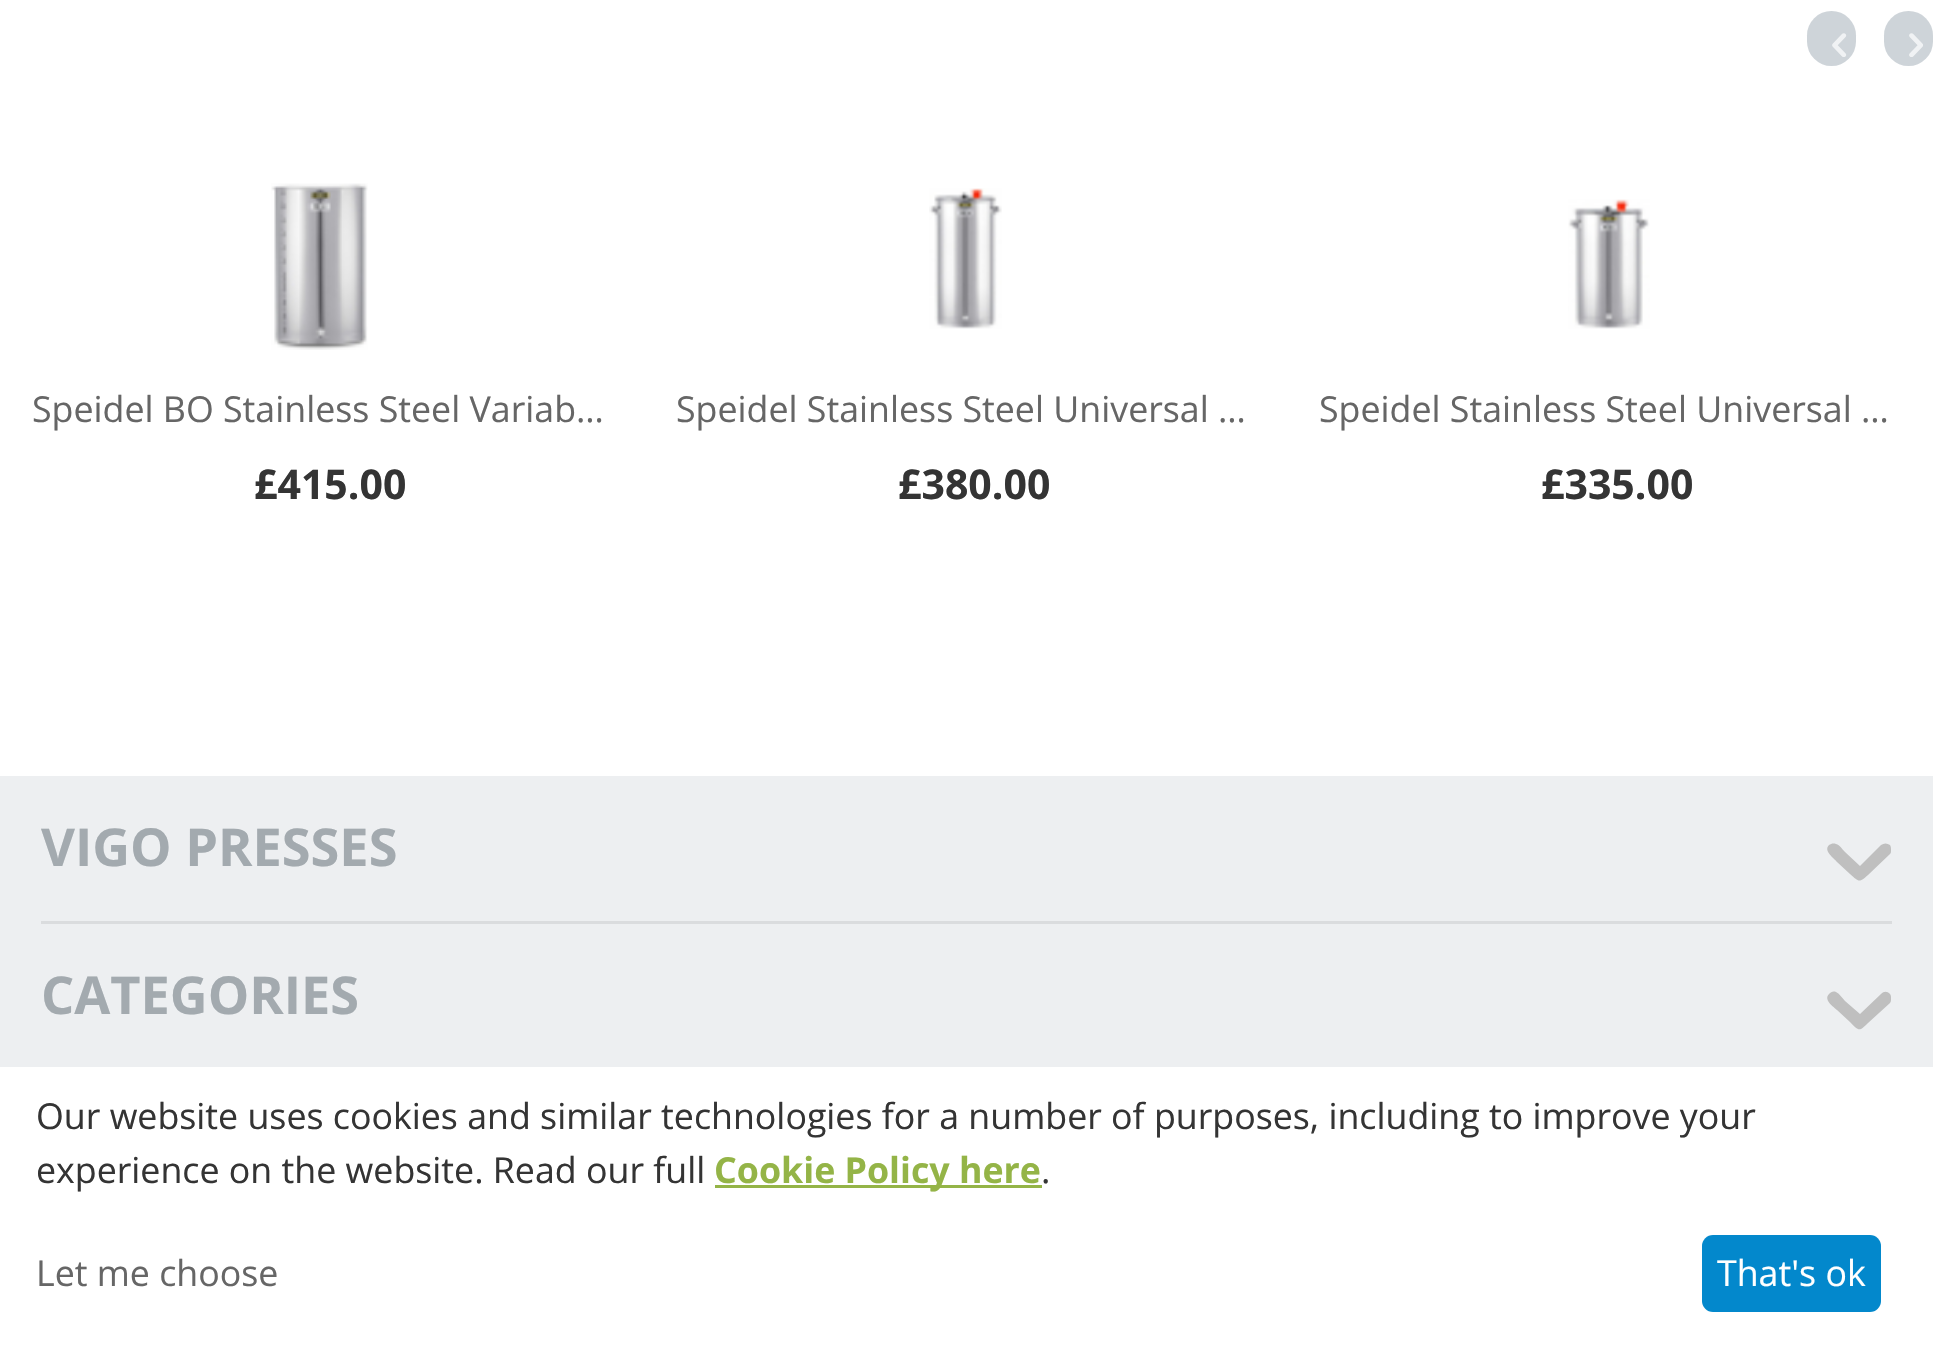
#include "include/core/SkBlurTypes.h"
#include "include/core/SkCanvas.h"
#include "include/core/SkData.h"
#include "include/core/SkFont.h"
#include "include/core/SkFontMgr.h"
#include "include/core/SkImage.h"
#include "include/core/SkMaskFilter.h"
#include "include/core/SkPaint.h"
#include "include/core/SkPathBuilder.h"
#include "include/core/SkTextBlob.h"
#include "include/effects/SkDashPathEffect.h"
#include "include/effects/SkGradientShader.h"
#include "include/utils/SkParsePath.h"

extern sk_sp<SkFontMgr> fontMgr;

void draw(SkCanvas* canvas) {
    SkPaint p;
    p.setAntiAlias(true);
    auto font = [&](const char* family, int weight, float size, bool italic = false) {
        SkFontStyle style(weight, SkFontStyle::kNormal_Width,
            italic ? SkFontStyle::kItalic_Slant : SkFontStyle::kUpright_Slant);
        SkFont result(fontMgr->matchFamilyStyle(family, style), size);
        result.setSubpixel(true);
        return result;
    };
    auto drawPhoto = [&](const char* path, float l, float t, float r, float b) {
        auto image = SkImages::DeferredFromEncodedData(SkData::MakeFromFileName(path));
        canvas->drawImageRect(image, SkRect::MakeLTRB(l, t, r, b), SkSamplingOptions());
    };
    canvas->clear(0xFFFFFFFF);
    p.setColor(0xFFCED4D9);
    canvas->drawRoundRect(SkRect::MakeLTRB(1807, 11, 1856, 66), 24.5f, 24.5f, p);
    drawPhoto("media/1.png", 1832, 33, 1847, 57);
    canvas->drawRoundRect(SkRect::MakeLTRB(1884, 11, 1933, 66), 24.5f, 24.5f, p);
    drawPhoto("media/2.png", 1909, 33, 1923, 57);
    drawPhoto("media/3.png", 271, 183, 368, 350);
    auto font1 = font("Open Sans", 400, 35.75f);
    p.setColor(0xFF666666);
    canvas->drawString("Speidel BO Stainless Steel Variab…", 32, 422, font1, p);
    auto font2 = font("Open Sans", 700, 41);
    p.setColor(0xFF343434);
    canvas->drawString("£415.00", 254, 499, font2, p);
    drawPhoto("media/4.png", 929, 188, 1002, 329);
    p.setColor(0xFF666666);
    canvas->drawString("Speidel Stainless Steel Universal …", 676, 422, font1, p);
    p.setColor(0xFF343434);
    canvas->drawString("£380.00", 898, 499, font2, p);
    drawPhoto("media/5.png", 1568, 199, 1650, 329);
    p.setColor(0xFF666666);
    canvas->drawString("Speidel Stainless Steel Universal …", 1319, 422, font1, p);
    p.setColor(0xFF343434);
    canvas->drawString("£335.00", 1541, 499, font2, p);
    p.setColor(0xFFEDEFF1);
    canvas->drawRect(SkRect::MakeLTRB(0, 776, 1933, 1067), p);
    p.setColor(0xFFDADCDE);
    canvas->drawRect(SkRect::MakeLTRB(41, 921, 1892, 924), p);
    auto font3 = font("Open Sans", 700, 52.25f);
    p.setColor(0xFFA3AAAF);
    canvas->drawString("VIGO PRESSES", 41, 866, font3, p);
    p.setColor(0xFFBFBFBF);
    canvas->drawPath(SkPathBuilder().moveTo(1890, 854).lineTo(1868, 875).cubicTo(1859, 883, 1859, 882, 1850, 874).lineTo(1837, 862).cubicTo(1834, 858, 1823, 851, 1829, 845).cubicTo(1831, 844, 1833, 843, 1836, 844).cubicTo(1840, 845, 1842, 849, 1845, 852).lineTo(1860, 866).lineTo(1881, 845).cubicTo(1884, 843, 1887, 843, 1890, 845).cubicTo(1891, 847, 1891, 848, 1891, 850).cubicTo(1891, 852, 1891, 853, 1890, 854).close().detach(), p);
    p.setColor(0xFFA3AAAF);
    canvas->drawString("CATEGORIES", 41, 1014, font3, p);
    p.setColor(0xFFBFBFBF);
    canvas->drawPath(SkPathBuilder().moveTo(1890, 1003).lineTo(1868, 1023).cubicTo(1859, 1032, 1859, 1031, 1850, 1022).lineTo(1837, 1010).cubicTo(1834, 1007, 1823, 1000, 1829, 994).cubicTo(1831, 992, 1833, 991, 1836, 992).cubicTo(1840, 994, 1842, 998, 1845, 1001).lineTo(1860, 1014).lineTo(1881, 994).cubicTo(1884, 991, 1887, 991, 1890, 994).cubicTo(1891, 995, 1891, 997, 1891, 998).cubicTo(1891, 1000, 1891, 1002, 1890, 1003).close().detach(), p);
    p.setColor(0xFF343434);
    canvas->drawString("Our website uses cookies and similar technologies for a number of purposes, including to improve your", 36, 1129, font1, p);
    canvas->drawString("experience on the website. Read our full", 36, 1183, font1, p);
    p.setColor(0xFF94B447);
    canvas->drawRect(SkRect::MakeLTRB(715, 1185, 1042, 1188), p);
    auto font4 = font("Open Sans", 700, 35.75f);
    canvas->drawString("Cookie Policy here", 714, 1183, font4, p);
    p.setColor(0xFF343434);
    canvas->drawString(".", 1041, 1183, font1, p);
    p.setColor(0xFF666666);
    canvas->drawString("Let me choose", 36, 1286, font1, p);
    p.setColor(0xFF0388CC);
    canvas->drawRoundRect(SkRect::MakeLTRB(1702, 1235, 1881, 1312), 11, 11, p);
    p.setColor(0xFFFFFFFF);
    canvas->drawString("That's ok", 1717, 1286, font1, p);
}
